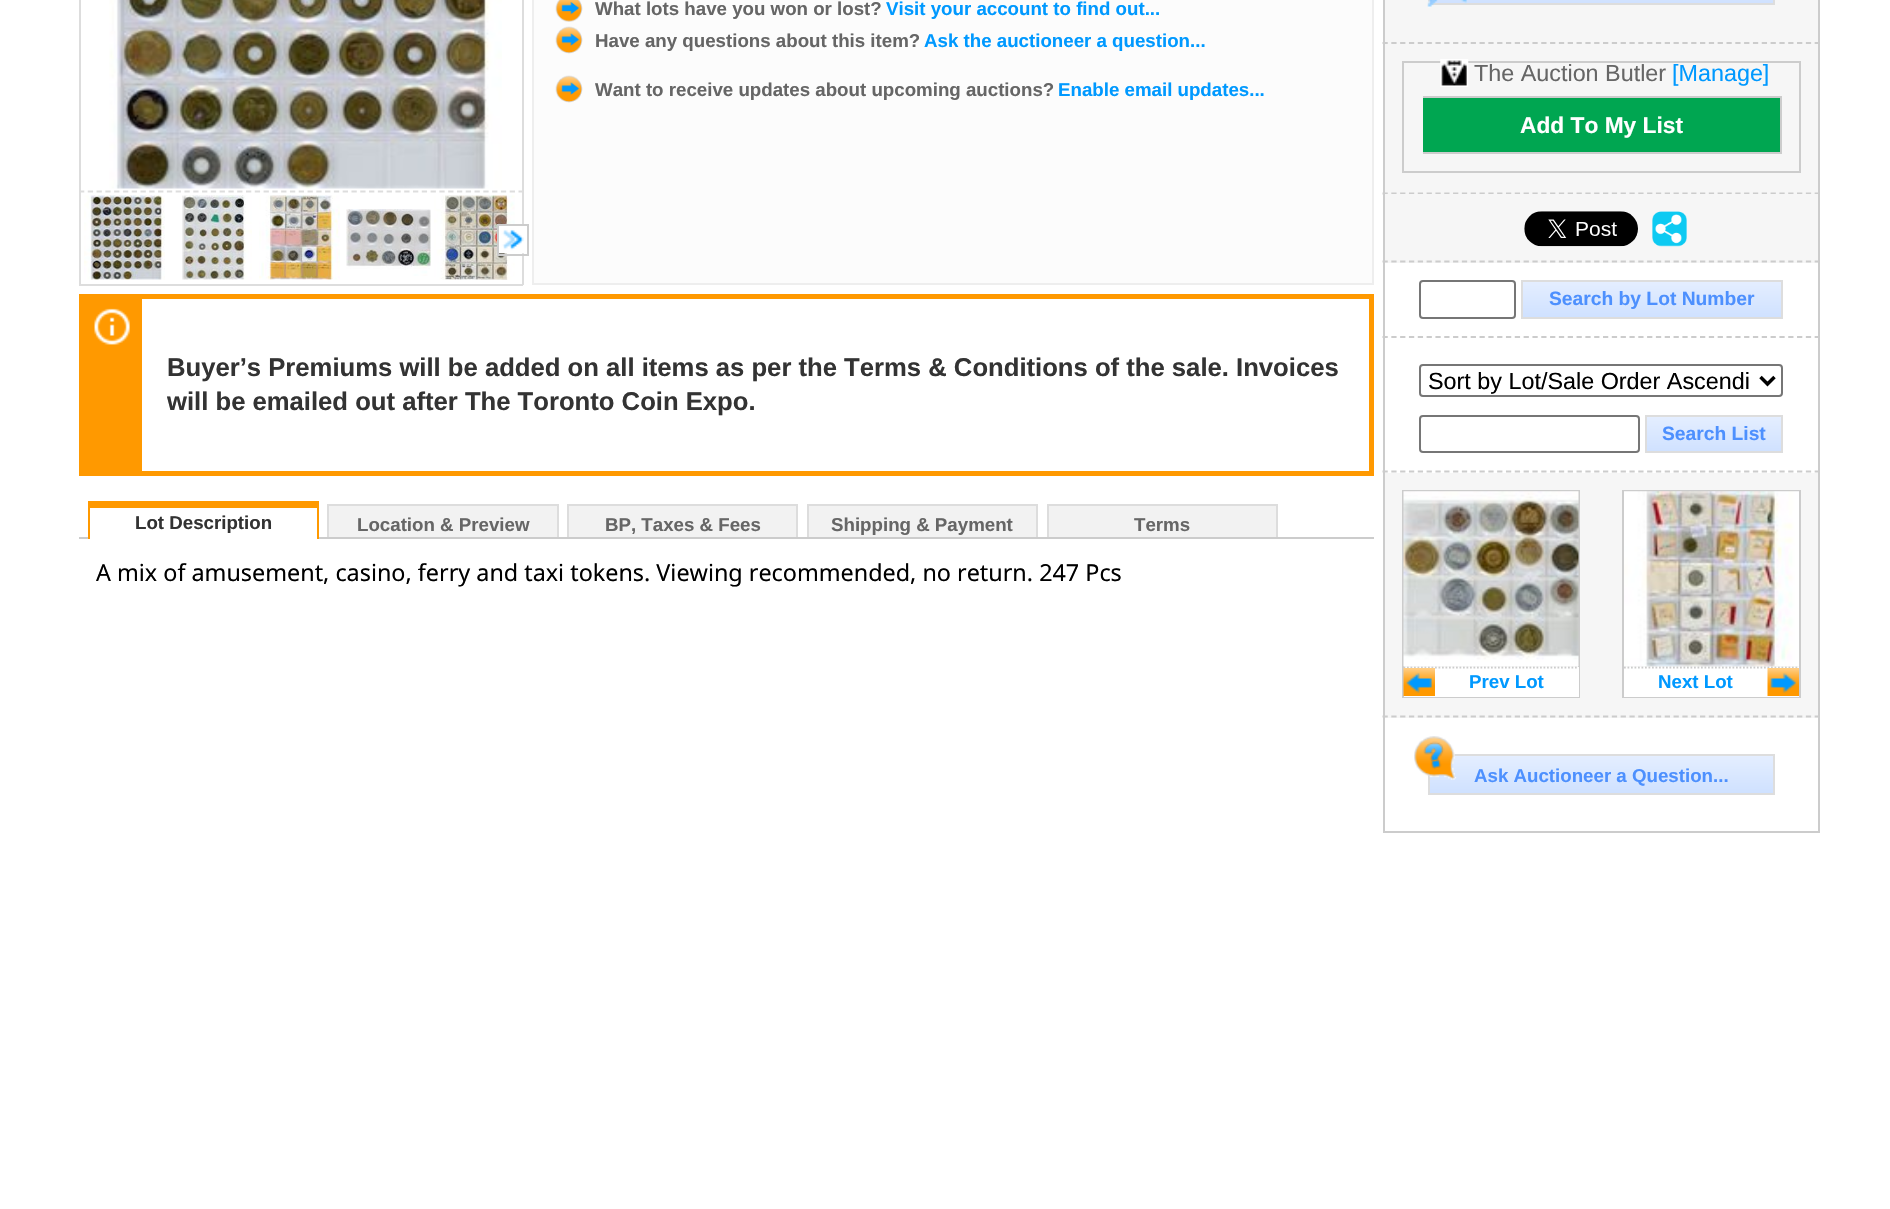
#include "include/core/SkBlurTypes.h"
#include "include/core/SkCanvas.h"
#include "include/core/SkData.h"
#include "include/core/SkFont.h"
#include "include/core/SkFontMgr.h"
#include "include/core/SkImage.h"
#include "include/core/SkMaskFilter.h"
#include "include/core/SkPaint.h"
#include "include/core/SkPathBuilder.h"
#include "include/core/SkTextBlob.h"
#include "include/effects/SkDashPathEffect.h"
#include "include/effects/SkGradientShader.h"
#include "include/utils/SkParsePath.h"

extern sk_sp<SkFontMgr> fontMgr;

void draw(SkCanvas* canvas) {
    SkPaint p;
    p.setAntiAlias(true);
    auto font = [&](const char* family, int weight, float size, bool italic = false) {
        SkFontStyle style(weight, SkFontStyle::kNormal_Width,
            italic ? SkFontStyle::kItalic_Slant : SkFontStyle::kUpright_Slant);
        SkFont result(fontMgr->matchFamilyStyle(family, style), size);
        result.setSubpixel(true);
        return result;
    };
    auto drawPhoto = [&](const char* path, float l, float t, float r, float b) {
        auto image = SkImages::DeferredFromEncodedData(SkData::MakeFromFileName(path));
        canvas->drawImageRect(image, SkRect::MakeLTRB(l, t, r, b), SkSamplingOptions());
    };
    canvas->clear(0xFFFFFFFF);
    p.setColor(0xFFDDDDDD);
    canvas->drawRect(SkRect::MakeLTRB(522, 0, 524, 191), p);
    canvas->drawRect(SkRect::MakeLTRB(79, 0, 81, 191), p);
    drawPhoto("media/1.png", 109, 0, 502, 189);
    p.setStyle(SkPaint::kStroke_Style);
    p.setStrokeWidth(1.8f);
    p.setPathEffect(SkDashPathEffect::Make({{5.25f, 3.54f}}, 0));
    canvas->drawPath(SkPathBuilder().moveTo(79, 191.5f).lineTo(523, 191.5f).detach(), p);
    p.setPathEffect(nullptr);
    p.setStyle(SkPaint::kFill_Style);
    {
        const struct { float l, t, r, b; SkColor color; } items[] = {
            {522, 191, 524, 285, 0xFFDDDDDD},
            {79, 284, 523, 286, 0xFFDDDDDD},
            {79, 191, 81, 285, 0xFFDDDDDD},
        };
        for (auto [l, t, r, b, color] : items) {
            p.setColor(color);
            canvas->drawRect(SkRect::MakeLTRB(l, t, r, b), p);
        }
    }
    drawPhoto("media/2.png", 84, 195, 165, 280);
    drawPhoto("media/3.png", 182, 195, 252, 280);
    drawPhoto("media/4.png", 259, 195, 340, 280);
    drawPhoto("media/5.png", 346, 209, 431, 276);
    drawPhoto("media/6.png", 434, 195, 515, 280);
    drawPhoto("media/7.png", 499, 226, 524, 254);
    p.setStyle(SkPaint::kStroke_Style);
    p.setStrokeWidth(2);
    p.setColor(0xFFCCCCCC);
    canvas->drawRect(SkRect::MakeLTRB(498, 225, 528, 255), p);
    p.setStyle(SkPaint::kFill_Style);
    p.setColor(0xFFFCFCFC);
    canvas->drawRect(SkRect::MakeLTRB(533, -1, 1373, 284), p);
    p.setStyle(SkPaint::kStroke_Style);
    p.setColor(0xFFEEEEEE);
    canvas->drawRect(SkRect::MakeLTRB(533, -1, 1373, 284), p);
    drawPhoto("media/8.png", 555, 0, 583, 22);
    auto font1 = font("Liberation Sans", 700, 18.7f);
    p.setStyle(SkPaint::kFill_Style);
    p.setColor(0xFF666666);
    canvas->drawString("What lots have you won or lost?", 595, 15, font1, p);
    p.setColor(0xFF0099FF);
    canvas->drawString("Visit your account to find out...", 886, 15, font1, p);
    drawPhoto("media/9.png", 555, 26, 583, 54);
    p.setColor(0xFF666666);
    canvas->drawString("Have any questions about this item?", 595, 47, font1, p);
    p.setColor(0xFF0099FF);
    canvas->drawString("Ask the auctioneer a question...", 924, 47, font1, p);
    drawPhoto("media/9.png", 555, 75, 583, 103);
    p.setColor(0xFF666666);
    canvas->drawString("Want to receive updates about upcoming auctions?", 595, 96, font1, p);
    p.setColor(0xFF0099FF);
    canvas->drawString("Enable email updates...", 1058, 96, font1, p);
    {
        const struct { float l, t, r, b; SkColor color; } items[] = {
            {142, 294, 1374, 299, 0xFFFF9900},
            {1369, 294, 1374, 476, 0xFFFF9900},
            {142, 471, 1374, 476, 0xFFFF9900},
            {79, 294, 142, 476, 0xFFFF9900},
        };
        for (auto [l, t, r, b, color] : items) {
            p.setColor(color);
            canvas->drawRect(SkRect::MakeLTRB(l, t, r, b), p);
        }
    }
    drawPhoto("media/10.png", 94, 308, 130, 345);
    auto font2 = font("Liberation Sans", 700, 25.65f);
    p.setColor(0xFF333333);
    canvas->drawString("Buyer’s Premiums will be added on all items as per the Terms & Conditions of the sale. Invoices", 167, 376, font2, p);
    canvas->drawString("will be emailed out after The Toronto Coin Expo.", 167, 410, font2, p);
    {
        const struct { float l, t, r, b; SkColor color; } items[] = {
            {79, 537, 1374, 539, 0xFFCCCCCC},
            {90, 537, 317, 539, 0xFFFFFFFF},
            {88, 501, 319, 508, 0xFFFF9900},
            {317, 501, 319, 539, 0xFFFF9900},
            {88, 501, 90, 539, 0xFFFF9900},
        };
        for (auto [l, t, r, b, color] : items) {
            p.setColor(color);
            canvas->drawRect(SkRect::MakeLTRB(l, t, r, b), p);
        }
    }
    p.setColor(0xFF333333);
    canvas->drawString("Lot Description", 135, 529, font1, p);
    {
        const struct { float l, t, r, b; SkColor color; } items[] = {
            {329, 506, 557, 537, 0xFFF2F2F2},
            {327, 504, 558, 506, 0xFFDDDDDD},
            {557, 504, 559, 537, 0xFFDDDDDD},
            {327, 504, 329, 537, 0xFFDDDDDD},
        };
        for (auto [l, t, r, b, color] : items) {
            p.setColor(color);
            canvas->drawRect(SkRect::MakeLTRB(l, t, r, b), p);
        }
    }
    p.setColor(0xFF666666);
    canvas->drawString("Location & Preview", 357, 531, font1, p);
    {
        const struct { float l, t, r, b; SkColor color; } items[] = {
            {569, 506, 796, 537, 0xFFF2F2F2},
            {567, 504, 798, 506, 0xFFDDDDDD},
            {796, 504, 798, 537, 0xFFDDDDDD},
            {567, 504, 569, 537, 0xFFDDDDDD},
        };
        for (auto [l, t, r, b, color] : items) {
            p.setColor(color);
            canvas->drawRect(SkRect::MakeLTRB(l, t, r, b), p);
        }
    }
    p.setColor(0xFF666666);
    canvas->drawString("BP, Taxes & Fees", 605, 531, font1, p);
    {
        const struct { float l, t, r, b; SkColor color; } items[] = {
            {809, 506, 1036, 537, 0xFFF2F2F2},
            {807, 504, 1038, 506, 0xFFDDDDDD},
            {1036, 504, 1038, 537, 0xFFDDDDDD},
            {807, 504, 809, 537, 0xFFDDDDDD},
        };
        for (auto [l, t, r, b, color] : items) {
            p.setColor(color);
            canvas->drawRect(SkRect::MakeLTRB(l, t, r, b), p);
        }
    }
    p.setColor(0xFF666666);
    canvas->drawString("Shipping & Payment", 831, 531, font1, p);
    {
        const struct { float l, t, r, b; SkColor color; } items[] = {
            {1049, 506, 1276, 537, 0xFFF2F2F2},
            {1047, 504, 1278, 506, 0xFFDDDDDD},
            {1276, 504, 1278, 537, 0xFFDDDDDD},
            {1047, 504, 1049, 537, 0xFFDDDDDD},
        };
        for (auto [l, t, r, b, color] : items) {
            p.setColor(color);
            canvas->drawRect(SkRect::MakeLTRB(l, t, r, b), p);
        }
    }
    p.setColor(0xFF666666);
    canvas->drawString("Terms", 1134, 531, font1, p);
    auto font3 = font("Noto Sans", 400, 23.35f);
    p.setColor(0xFF000000);
    canvas->drawString("A mix of amusement, casino, ferry and taxi tokens. Viewing recommended, no return. 247 Pcs", 96, 581, font3, p);
    p.setColor(0xFFF6F6F6);
    canvas->drawRect(SkRect::MakeLTRB(1385, 0, 1818, 194), p);
    p.setColor(0xFFCCCCCC);
    canvas->drawRect(SkRect::MakeLTRB(1818, 0, 1820, 194), p);
    p.setStyle(SkPaint::kStroke_Style);
    p.setStrokeWidth(1.8f);
    p.setPathEffect(SkDashPathEffect::Make({{5.25f, 3.57f}}, 0));
    canvas->drawPath(SkPathBuilder().moveTo(1382.5f, 43).lineTo(1820, 43).detach(), p);
    p.setPathEffect(nullptr);
    p.setStyle(SkPaint::kFill_Style);
    canvas->drawRect(SkRect::MakeLTRB(1383, 0, 1385, 44), p);
    {
        const SkColor colors[] = {0xFFE4EEFF, 0xFFCFE1FF};
        const float stops[] = {0, 1};
        const SkPoint ends[] = {{1601, -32}, {1601, 3.5f}};
        p.setShader(SkGradientShader::MakeLinear(ends, colors, stops, 2, SkTileMode::kClamp));
        p.setAlpha(255);
    }
    canvas->drawRect(SkRect::MakeLTRB(1428, 0, 1775, 3), p);
    p.setStyle(SkPaint::kStroke_Style);
    p.setStrokeWidth(2);
    p.setShader(nullptr);
    p.setColor(0xFFDDDDDD);
    canvas->drawRect(SkRect::MakeLTRB(1429, -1, 1774, 4), p);
    drawPhoto("media/11.png", 1427, 0, 1467, 8);
    p.setStrokeWidth(1.8f);
    p.setColor(0xFFCCCCCC);
    p.setPathEffect(SkDashPathEffect::Make({{5.25f, 3.57f}}, 0));
    canvas->drawPath(SkPathBuilder().moveTo(1382.5f, 193.5f).lineTo(1820, 193.5f).detach(), p);
    p.setPathEffect(nullptr);
    p.setStyle(SkPaint::kFill_Style);
    canvas->drawRect(SkRect::MakeLTRB(1383, 44, 1385, 194), p);
    p.setStyle(SkPaint::kStroke_Style);
    p.setStrokeWidth(2);
    canvas->drawRect(SkRect::MakeLTRB(1403, 62, 1800, 172), p);
    drawPhoto("media/12.png", 1440, 59, 1469, 87);
    auto font4 = font("Liberation Sans", 400, 23.35f);
    p.setStyle(SkPaint::kFill_Style);
    p.setColor(0xFF666666);
    canvas->drawString("The Auction Butler", 1474, 81, font4, p);
    p.setColor(0xFF0099FF);
    canvas->drawString("[Manage]", 1672, 81, font4, p);
    {
        const struct { float l, t, r, b; SkColor color; } items[] = {
            {1423, 98, 1780, 152, 0xFF00A651},
            {1423, 96, 1782, 98, 0xFFCCCCCC},
            {1780, 96, 1782, 154, 0xFFCCCCCC},
            {1423, 152, 1782, 154, 0xFFCCCCCC},
        };
        for (auto [l, t, r, b, color] : items) {
            p.setColor(color);
            canvas->drawRect(SkRect::MakeLTRB(l, t, r, b), p);
        }
    }
    auto font5 = font("Liberation Sans", 700, 22.75f);
    p.setColor(0xFFFFFFFF);
    canvas->drawString("Add To My List", 1520, 133, font5, p);
    p.setColor(0xFFF6F6F6);
    canvas->drawRect(SkRect::MakeLTRB(1385, 194, 1818, 263), p);
    p.setColor(0xFFCCCCCC);
    canvas->drawRect(SkRect::MakeLTRB(1818, 194, 1820, 833), p);
    p.setStyle(SkPaint::kStroke_Style);
    p.setStrokeWidth(1.8f);
    p.setPathEffect(SkDashPathEffect::Make({{5.25f, 3.57f}}, 0));
    canvas->drawPath(SkPathBuilder().moveTo(1382.5f, 261.5f).lineTo(1820, 261.5f).detach(), p);
    p.setPathEffect(nullptr);
    p.setStyle(SkPaint::kFill_Style);
    canvas->drawRect(SkRect::MakeLTRB(1383, 194, 1385, 263), p);
    drawPhoto("media/13.png", 1524, 211, 1638, 247);
    drawPhoto("media/14.png", 1652, 211, 1687, 247);
    p.setStyle(SkPaint::kStroke_Style);
    p.setPathEffect(SkDashPathEffect::Make({{5.25f, 3.57f}}, 0));
    canvas->drawPath(SkPathBuilder().moveTo(1382.5f, 337).lineTo(1820, 337).detach(), p);
    p.setPathEffect(nullptr);
    p.setStyle(SkPaint::kFill_Style);
    canvas->drawRect(SkRect::MakeLTRB(1383, 263, 1385, 338), p);
    p.setStyle(SkPaint::kStroke_Style);
    p.setStrokeWidth(2);
    p.setColor(0xFF767676);
    canvas->drawRoundRect(SkRect::MakeLTRB(1420, 281, 1515, 318), 3, 3, p);
    p.setStyle(SkPaint::kFill_Style);
    {
        const SkColor colors[] = {0xFFE4EEFF, 0xFFCFE1FF};
        const float stops[] = {0, 1};
        const SkPoint ends[] = {{1652, 282}, {1652, 317}};
        p.setShader(SkGradientShader::MakeLinear(ends, colors, stops, 2, SkTileMode::kClamp));
        p.setAlpha(255);
    }
    canvas->drawRect(SkRect::MakeLTRB(1523, 282, 1781, 317), p);
    p.setStyle(SkPaint::kStroke_Style);
    p.setShader(nullptr);
    p.setColor(0xFFDDDDDD);
    canvas->drawRect(SkRect::MakeLTRB(1522, 281, 1782, 318), p);
    auto font6 = font("Liberation Sans", 700, 19.25f);
    p.setStyle(SkPaint::kFill_Style);
    p.setColor(0xFF4D90FE);
    canvas->drawString("Search by Lot Number", 1549, 305, font6, p);
    p.setStyle(SkPaint::kStroke_Style);
    p.setStrokeWidth(1.8f);
    p.setColor(0xFFCCCCCC);
    p.setPathEffect(SkDashPathEffect::Make({{5.25f, 3.57f}}, 0));
    canvas->drawPath(SkPathBuilder().moveTo(1382.5f, 471.5f).lineTo(1820, 471.5f).detach(), p);
    p.setPathEffect(nullptr);
    p.setStyle(SkPaint::kFill_Style);
    canvas->drawRect(SkRect::MakeLTRB(1383, 338, 1385, 473), p);
    p.setStyle(SkPaint::kStroke_Style);
    p.setStrokeWidth(2);
    p.setColor(0xFF767676);
    canvas->drawRoundRect(SkRect::MakeLTRB(1420, 365, 1782, 396), 3, 3, p);
    p.setStrokeWidth(3.5f);
    p.setColor(0xFF000000);
    canvas->drawPath(SkPathBuilder().moveTo(1760.5f, 377).lineTo(1767.5f, 384).lineTo(1774.5f, 377).detach(), p);
    p.setStyle(SkPaint::kFill_Style);
    canvas->drawString("Sort by Lot/Sale Order Ascendi", 1428, 389, font4, p);
    p.setStyle(SkPaint::kStroke_Style);
    p.setStrokeWidth(2);
    p.setColor(0xFF767676);
    canvas->drawRoundRect(SkRect::MakeLTRB(1420, 416, 1639, 452), 3, 3, p);
    p.setStyle(SkPaint::kFill_Style);
    {
        const SkColor colors[] = {0xFFE4EEFF, 0xFFCFE1FF};
        const float stops[] = {0, 1};
        const SkPoint ends[] = {{1714, 417}, {1714, 452}};
        p.setShader(SkGradientShader::MakeLinear(ends, colors, stops, 2, SkTileMode::kClamp));
        p.setAlpha(255);
    }
    canvas->drawRect(SkRect::MakeLTRB(1647, 417, 1781, 451), p);
    p.setStyle(SkPaint::kStroke_Style);
    p.setShader(nullptr);
    p.setColor(0xFFDDDDDD);
    canvas->drawRect(SkRect::MakeLTRB(1646, 416, 1782, 452), p);
    p.setStyle(SkPaint::kFill_Style);
    p.setColor(0xFF4D90FE);
    canvas->drawString("Search List", 1662, 440, font6, p);
    p.setColor(0xFFF6F6F6);
    canvas->drawRect(SkRect::MakeLTRB(1385, 473, 1818, 718), p);
    p.setStyle(SkPaint::kStroke_Style);
    p.setStrokeWidth(1.8f);
    p.setColor(0xFFCCCCCC);
    p.setPathEffect(SkDashPathEffect::Make({{5.25f, 3.57f}}, 0));
    canvas->drawPath(SkPathBuilder().moveTo(1382.5f, 716.5f).lineTo(1820, 716.5f).detach(), p);
    p.setPathEffect(nullptr);
    p.setStyle(SkPaint::kFill_Style);
    canvas->drawRect(SkRect::MakeLTRB(1383, 473, 1385, 718), p);
    p.setStyle(SkPaint::kStroke_Style);
    p.setStrokeWidth(2);
    canvas->drawRect(SkRect::MakeLTRB(1403, 491, 1579, 697), p);
    p.setStyle(SkPaint::kFill_Style);
    p.setColor(0xFFFFFFFF);
    canvas->drawRect(SkRect::MakeLTRB(1404, 667, 1579, 697), p);
    p.setStyle(SkPaint::kStroke_Style);
    p.setStrokeWidth(1.8f);
    p.setColor(0xFFCCCCCC);
    p.setPathEffect(SkDashPathEffect::Make({{1.75f, 1.75f}}, 0));
    canvas->drawPath(SkPathBuilder().moveTo(1403.5f, 667.5f).lineTo(1578.5f, 667.5f).detach(), p);
    p.setPathEffect(nullptr);
    drawPhoto("media/15.png", 1403, 491, 1579, 667);
    drawPhoto("media/16.png", 1403, 668, 1435, 696);
    p.setStyle(SkPaint::kFill_Style);
    p.setColor(0xFF0099FF);
    canvas->drawString("Prev Lot", 1469, 688, font1, p);
    p.setStyle(SkPaint::kStroke_Style);
    p.setStrokeWidth(2);
    p.setColor(0xFFCCCCCC);
    canvas->drawRect(SkRect::MakeLTRB(1623, 491, 1800, 697), p);
    p.setStyle(SkPaint::kFill_Style);
    p.setColor(0xFFFFFFFF);
    canvas->drawRect(SkRect::MakeLTRB(1624, 667, 1799, 697), p);
    p.setStyle(SkPaint::kStroke_Style);
    p.setStrokeWidth(1.8f);
    p.setColor(0xFFCCCCCC);
    p.setPathEffect(SkDashPathEffect::Make({{1.75f, 1.75f}}, 0));
    canvas->drawPath(SkPathBuilder().moveTo(1624, 667.5f).lineTo(1799, 667.5f).detach(), p);
    p.setPathEffect(nullptr);
    drawPhoto("media/17.png", 1624, 491, 1799, 667);
    p.setStyle(SkPaint::kFill_Style);
    p.setColor(0xFF0099FF);
    canvas->drawString("Next Lot", 1658, 688, font1, p);
    drawPhoto("media/18.png", 1767, 668, 1799, 696);
    p.setColor(0xFFCCCCCC);
    canvas->drawRect(SkRect::MakeLTRB(1383, 831, 1820, 833), p);
    canvas->drawRect(SkRect::MakeLTRB(1383, 718, 1385, 833), p);
    {
        const SkColor colors[] = {0xFFE4EEFF, 0xFFCFE1FF};
        const float stops[] = {0, 1};
        const SkPoint ends[] = {{1601, 756}, {1601, 793}};
        p.setShader(SkGradientShader::MakeLinear(ends, colors, stops, 2, SkTileMode::kClamp));
        p.setAlpha(255);
    }
    canvas->drawRect(SkRect::MakeLTRB(1430, 756, 1773, 793), p);
    p.setStyle(SkPaint::kStroke_Style);
    p.setStrokeWidth(2);
    p.setShader(nullptr);
    p.setColor(0xFFDDDDDD);
    canvas->drawRect(SkRect::MakeLTRB(1429, 755, 1774, 794), p);
    drawPhoto("media/19.png", 1414, 736, 1457, 780);
    p.setStyle(SkPaint::kFill_Style);
    p.setColor(0xFF4D90FE);
    canvas->drawString("Ask Auctioneer a Question...", 1474, 782, font1, p);
}
